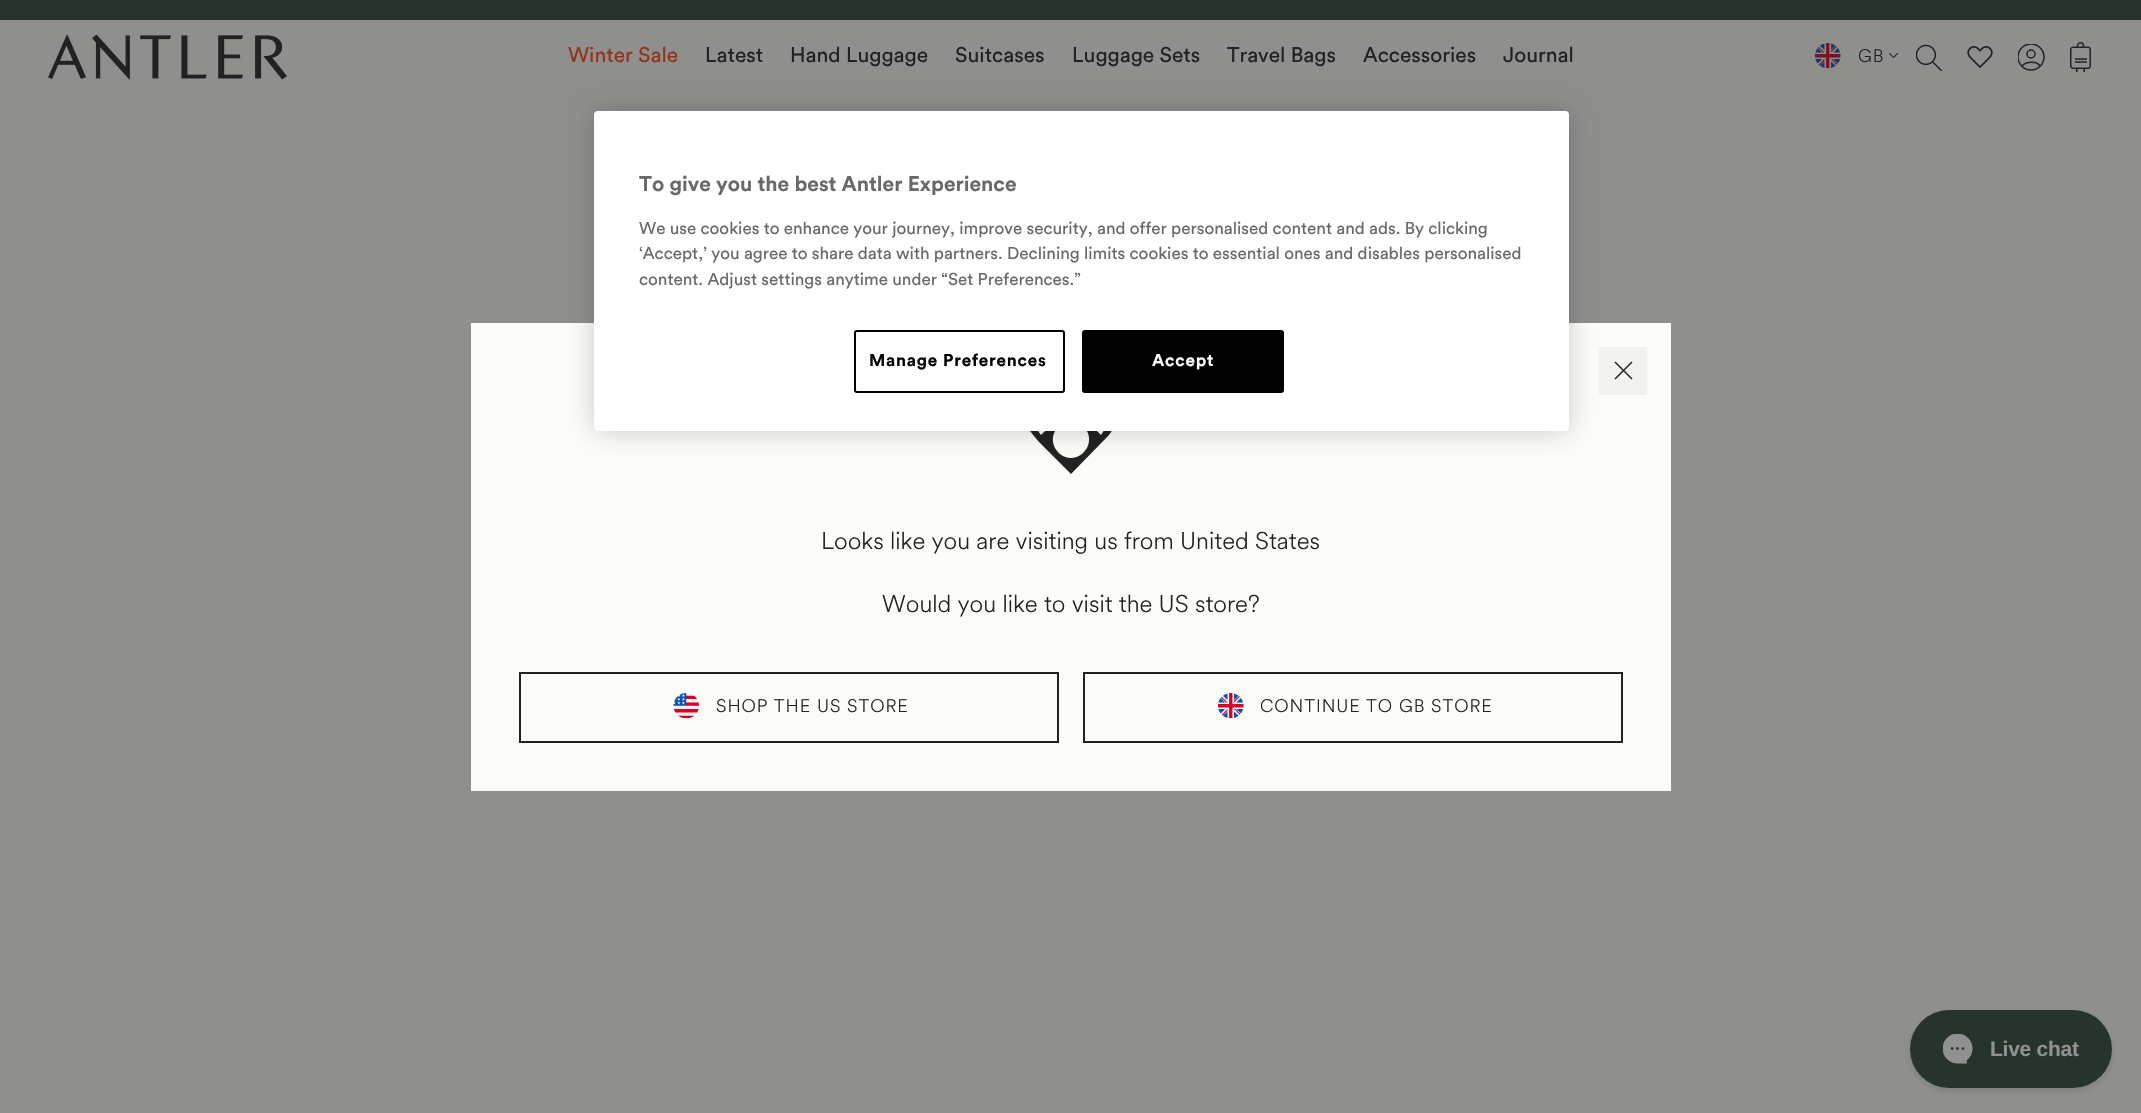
#include "include/core/SkBlurTypes.h"
#include "include/core/SkCanvas.h"
#include "include/core/SkData.h"
#include "include/core/SkFont.h"
#include "include/core/SkFontMgr.h"
#include "include/core/SkImage.h"
#include "include/core/SkMaskFilter.h"
#include "include/core/SkPaint.h"
#include "include/core/SkPathBuilder.h"
#include "include/core/SkTextBlob.h"
#include "include/effects/SkDashPathEffect.h"
#include "include/effects/SkGradientShader.h"
#include "include/utils/SkParsePath.h"

extern sk_sp<SkFontMgr> fontMgr;

void draw(SkCanvas* canvas) {
    SkPaint p;
    p.setAntiAlias(true);
    auto font = [&](const char* family, int weight, float size, bool italic = false) {
        SkFontStyle style(weight, SkFontStyle::kNormal_Width,
            italic ? SkFontStyle::kItalic_Slant : SkFontStyle::kUpright_Slant);
        SkFont result(fontMgr->matchFamilyStyle(family, style), size);
        result.setSubpixel(true);
        return result;
    };
    auto drawTracked = [&](const char* s, float x, float y, const SkFont& font, const SkPaint& ink, float letter, float word) {
        std::vector<SkGlyphID> glyphs(font.countText(s, strlen(s), SkTextEncoding::kUTF8));
        std::vector<float> xs(glyphs.size());
        font.textToGlyphs(s, strlen(s), SkTextEncoding::kUTF8, glyphs);
        font.getXPos(glyphs, xs, x);
        float extra = 0;
        for (size_t i = 0; i < glyphs.size(); i++) {
            xs[i] += extra;
            extra += letter + word * (glyphs[i] == font.unicharToGlyph(' '));
        }
        canvas->drawTextBlob(SkTextBlob::MakeFromPosHGlyphs(glyphs, xs, y, font), 0, 0, ink);
    };
    auto drawPhoto = [&](const char* path, float l, float t, float r, float b) {
        auto image = SkImages::DeferredFromEncodedData(SkData::MakeFromFileName(path));
        canvas->drawImageRect(image, SkRect::MakeLTRB(l, t, r, b), SkSamplingOptions());
    };
    canvas->clear(0xFF8F8F8D);
    p.setColor(0xFF26342B);
    canvas->drawRect(SkRect::MakeLTRB(0, 0, 2141, 20), p);
    drawPhoto("media/1.png", 48, 35, 287, 80);
    auto font1 = font("Circular", 400, 21);
    p.setColor(0xFF91351B);
    canvas->drawString("Winter Sale", 568, 62, font1, p);
    p.setColor(0xFF222222);
    {
        const struct { const char* s; float x, y; } items[] = {
            {"Latest", 705, 62},
            {"Hand Luggage", 790, 62},
            {"Suitcases", 955, 62},
            {"Luggage Sets", 1072, 62},
            {"Travel Bags", 1227, 62},
            {"Accessories", 1363, 62},
            {"Journal", 1503, 62},
        };
        for (auto [s, x, y] : items) {
            canvas->drawString(s, x, y, font1, p);
        }
    }
    drawPhoto("media/2.png", 1815, 43, 1841, 69);
    auto font2 = font("Circular", 300, 18);
    drawTracked("GB", 1858, 62, font2, p, 0.9f, 0);
    drawPhoto("media/3.png", 1889, 53, 1898, 58);
    drawPhoto("media/4.png", 1916, 44, 1942, 71);
    drawPhoto("media/5.png", 1967, 46, 1993, 69);
    p.setStyle(SkPaint::kStroke_Style);
    p.setStrokeWidth(1.5f);
    canvas->drawCircle(2031, 54, 4, p);
    canvas->save();
    canvas->clipRect(SkRect::MakeLTRB(2018, 44, 2045, 71));
    canvas->drawCircle(2031, 57, 13, p);
    canvas->restore();
    canvas->drawPath(SkPathBuilder().moveTo(2040, 66).cubicTo(2036.5f, 60.5f, 2026, 61.5f, 2022, 66).detach(), p);
    drawPhoto("media/6.png", 2070, 42, 2091, 72);
    p.setStyle(SkPaint::kFill_Style);
    p.setColor(0xFFFCFCF8);
    canvas->drawRect(SkRect::MakeLTRB(471, 323, 1671, 791), p);
    p.setColor(0xFF222222);
    canvas->drawPath(SkPathBuilder().moveTo(1119, 399).cubicTo(1117, 388, 1113, 378, 1105, 370).lineTo(1096, 380).cubicTo(1113, 395, 1113, 420, 1101, 435).lineTo(1088, 422).lineTo(1084, 427).cubicTo(1096, 440, 1085, 458, 1071, 458).cubicTo(1057, 458, 1046, 440, 1058, 427).lineTo(1054, 422).lineTo(1041, 435).cubicTo(1029, 420, 1029, 395, 1046, 380).lineTo(1037, 370).cubicTo(1021, 387, 1019, 412, 1030, 431).cubicTo(1035, 438, 1041, 444, 1047, 450).lineTo(1071, 474).lineTo(1109, 435).cubicTo(1117, 425, 1120, 411, 1119, 399).close().detach(), p);
    p.setColor(0xFFF2F2EE);
    canvas->drawRect(SkRect::MakeLTRB(1599, 347, 1647, 395), p);
    p.setColor(0x33000000);
    p.setMaskFilter(SkMaskFilter::MakeBlur(kNormal_SkBlurStyle, 13.5f));
    canvas->drawRoundRect(SkRect::MakeLTRB(594, 111, 1569, 431), 4, 4, p);
    p.setMaskFilter(nullptr);
    p.setColor(0xFFFFFFFF);
    canvas->drawRoundRect(SkRect::MakeLTRB(594, 111, 1569, 431), 4, 4, p);
    auto font3 = font("Circular", 700, 21);
    p.setColor(0xFF696969);
    canvas->drawString("To give you the best Antler Experience", 639, 191, font3, p);
    auto font4 = font("Circular", 400, 17.07f);
    {
        const struct { const char* s; float x, y; } items[] = {
            {"We use cookies to enhance your journey, improve security, and offer personalised content and ads. By clicking", 639, 234},
            {"‘Accept,’ you agree to share data with partners. Declining limits cookies to essential ones and disables personalised", 639, 259},
            {"content. Adjust settings anytime under “Set Preferences.”", 639, 285},
        };
        for (auto [s, x, y] : items) {
            canvas->drawString(s, x, y, font4, p);
        }
    }
    p.setStyle(SkPaint::kStroke_Style);
    p.setStrokeWidth(2);
    p.setColor(0xFF000000);
    canvas->drawRoundRect(SkRect::MakeLTRB(855, 331, 1064, 392), 2, 2, p);
    auto font5 = font("Circular", 700, 17.07f);
    p.setStyle(SkPaint::kFill_Style);
    drawTracked("Manage Preferences", 869, 366, font5, p, 0.8f, 0);
    canvas->drawRoundRect(SkRect::MakeLTRB(1083, 331, 1283, 392), 2, 2, p);
    p.setStyle(SkPaint::kStroke_Style);
    canvas->drawRoundRect(SkRect::MakeLTRB(1083, 331, 1283, 392), 2, 2, p);
    p.setStyle(SkPaint::kFill_Style);
    p.setColor(0xFFFFFFFF);
    drawTracked("Accept", 1152, 366, font5, p, 0.8f, 0);
    p.setStyle(SkPaint::kStroke_Style);
    p.setStrokeWidth(1.5f);
    p.setColor(0xFF222222);
    canvas->drawPath(SkPathBuilder().moveTo(1615, 362).lineTo(1632, 379).moveTo(1615, 379).lineTo(1632, 362).detach(), p);
    auto font6 = font("Circular", 300, 24);
    p.setStyle(SkPaint::kFill_Style);
    canvas->drawString("Looks like you are visiting us from United States", 821, 549, font6, p);
    canvas->drawString("Would you like to visit the US store?", 882, 612, font6, p);
    drawPhoto("media/7.png", 673, 693, 699, 719);
    p.setStyle(SkPaint::kStroke_Style);
    p.setStrokeWidth(2);
    canvas->drawRect(SkRect::MakeLTRB(520, 673, 1058, 742), p);
    p.setStyle(SkPaint::kFill_Style);
    {
        const struct { const char* s; float x, y; } items[] = {
            {"SHOP THE", 716, 712},
            {"US", 817, 712},
            {"STORE", 847, 712},
        };
        for (auto [s, x, y] : items) {
            drawTracked(s, x, y, font2, p, 0.9f, 0);
        }
    }
    drawPhoto("media/8.png", 1218, 693, 1244, 719);
    p.setStyle(SkPaint::kStroke_Style);
    canvas->drawRect(SkRect::MakeLTRB(1084, 673, 1622, 742), p);
    p.setStyle(SkPaint::kFill_Style);
    {
        const struct { const char* s; float x, y; } items[] = {
            {"CONTINUE TO", 1260, 712},
            {"GB", 1399, 712},
            {"STORE", 1431, 712},
        };
        for (auto [s, x, y] : items) {
            drawTracked(s, x, y, font2, p, 0.9f, 0);
        }
    }
    p.setColor(0x291C1C1C);
    p.setMaskFilter(SkMaskFilter::MakeBlur(kNormal_SkBlurStyle, 3));
    canvas->drawRoundRect(SkRect::MakeLTRB(1910, 1013, 2112, 1091), 39, 39, p);
    p.setMaskFilter(nullptr);
    p.setColor(0xFF26342B);
    canvas->drawRoundRect(SkRect::MakeLTRB(1910, 1010, 2112, 1088), 39, 39, p);
    drawPhoto("media/9.png", 1943, 1034, 1973, 1064);
    auto font7 = font("Liberation Sans", 700, 21);
    p.setColor(0xFF919191);
    drawTracked("Live chat", 1990, 1056, font7, p, -0.25f, 0);
}
